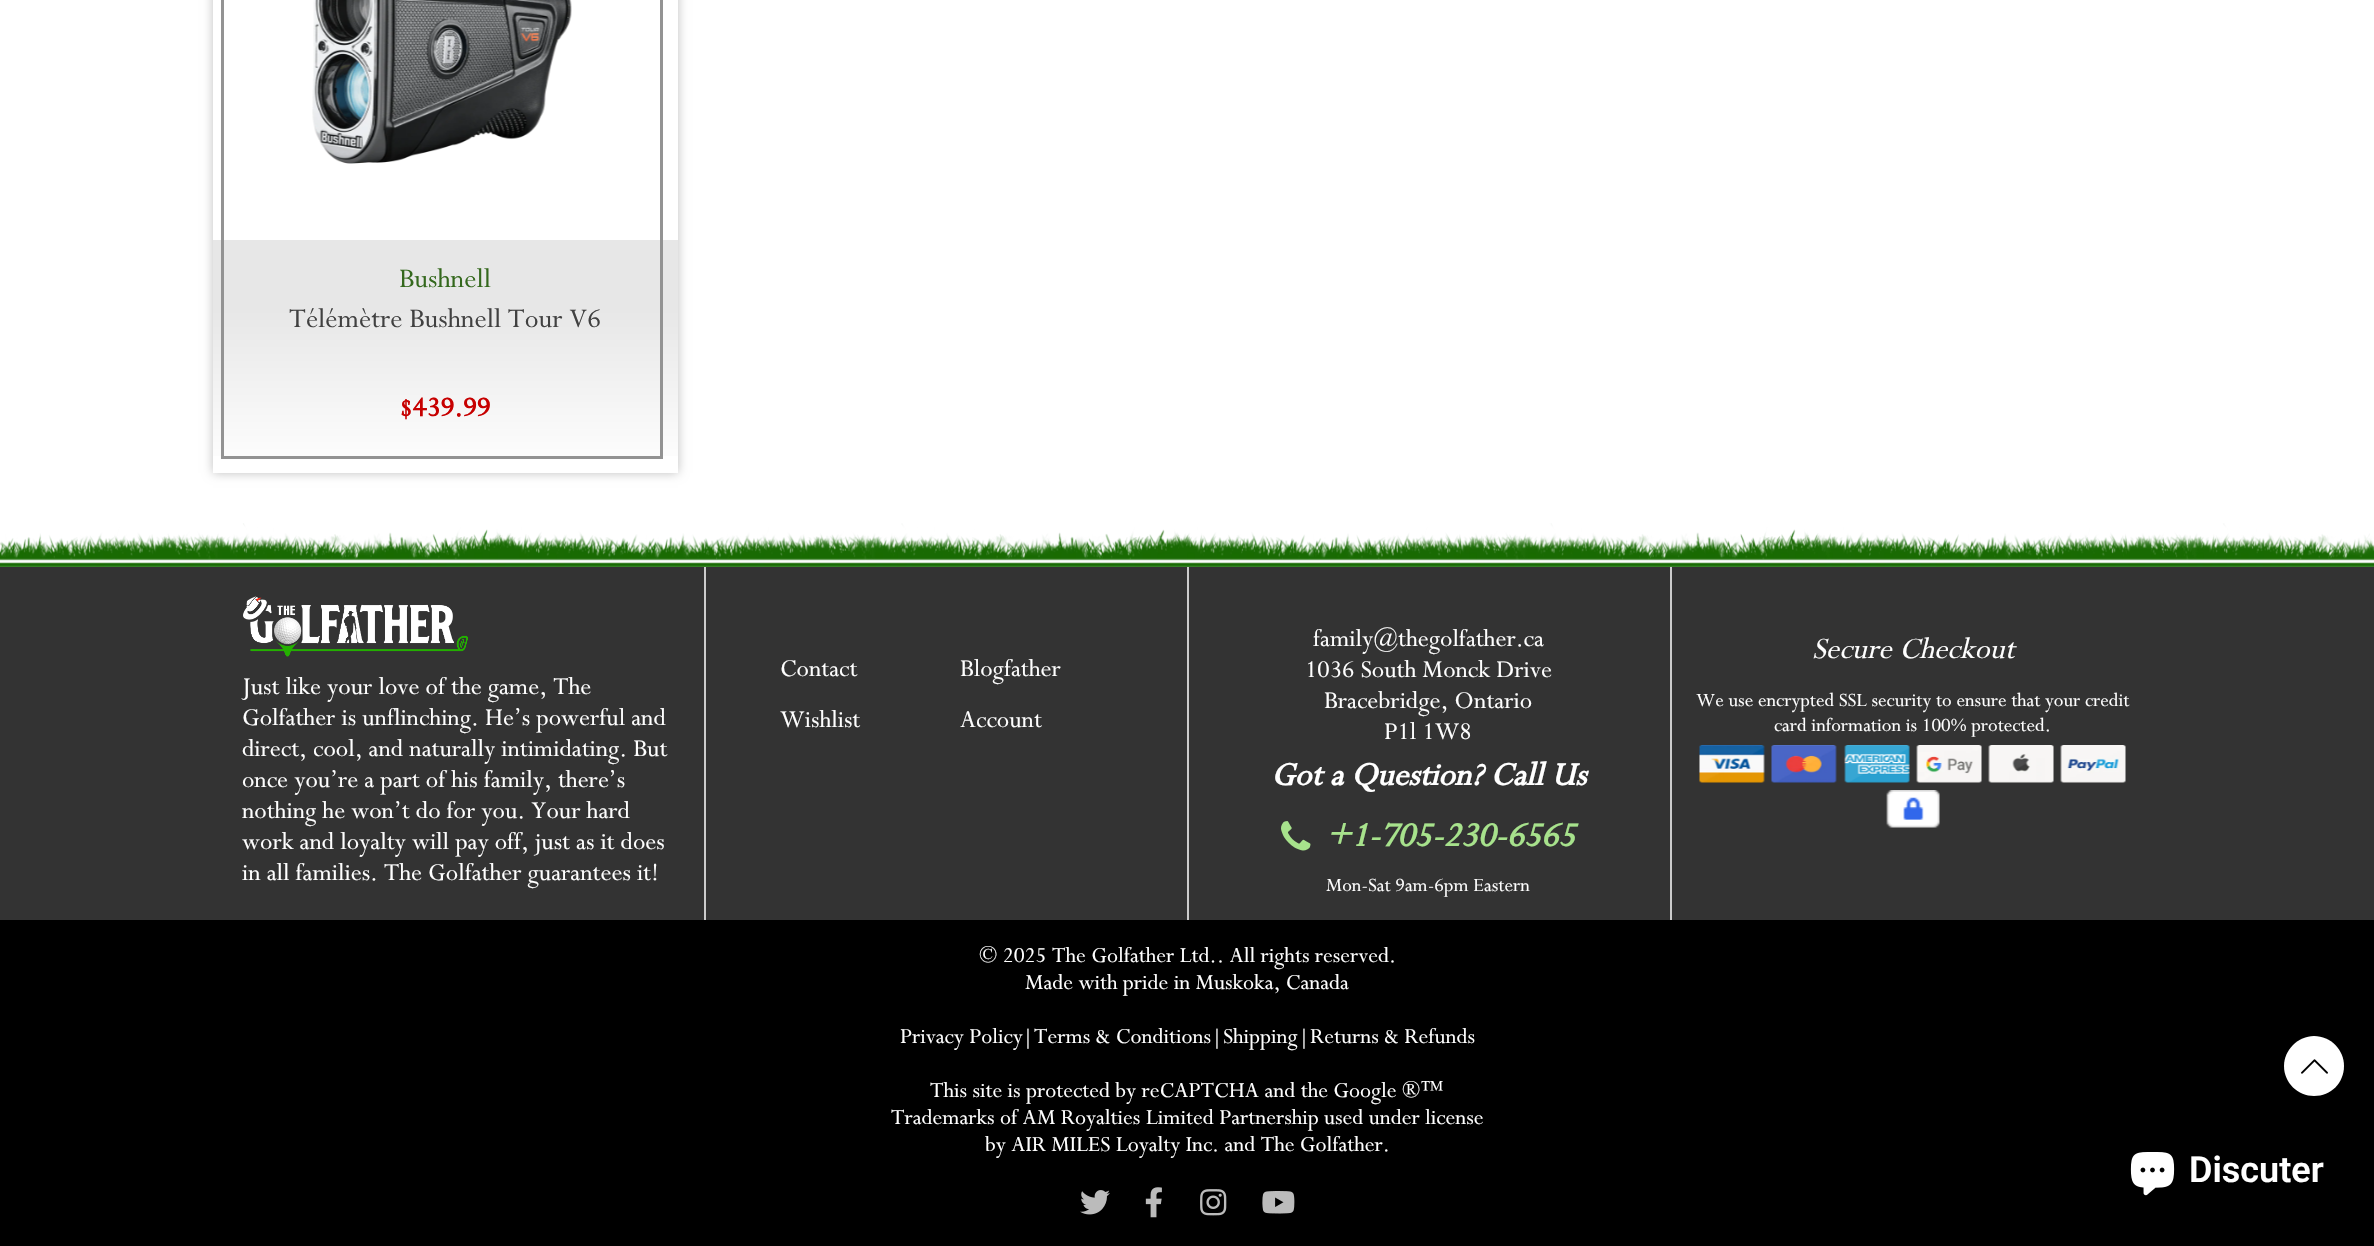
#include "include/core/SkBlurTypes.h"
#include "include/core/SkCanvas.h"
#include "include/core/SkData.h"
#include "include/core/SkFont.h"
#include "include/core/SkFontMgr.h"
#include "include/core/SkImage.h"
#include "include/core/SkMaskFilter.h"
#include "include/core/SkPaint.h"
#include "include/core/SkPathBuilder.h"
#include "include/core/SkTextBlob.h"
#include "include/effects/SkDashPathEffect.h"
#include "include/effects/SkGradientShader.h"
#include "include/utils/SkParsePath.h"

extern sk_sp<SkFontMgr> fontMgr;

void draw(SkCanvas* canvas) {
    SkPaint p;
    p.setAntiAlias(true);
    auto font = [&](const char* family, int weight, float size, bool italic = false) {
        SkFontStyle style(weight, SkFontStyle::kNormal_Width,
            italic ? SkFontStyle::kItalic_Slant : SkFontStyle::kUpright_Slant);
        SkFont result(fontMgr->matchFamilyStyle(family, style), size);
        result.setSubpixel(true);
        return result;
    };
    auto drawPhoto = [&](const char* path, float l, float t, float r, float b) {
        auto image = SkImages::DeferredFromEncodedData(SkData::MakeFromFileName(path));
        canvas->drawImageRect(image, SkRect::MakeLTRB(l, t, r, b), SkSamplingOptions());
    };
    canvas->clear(0xFFFFFFFF);
    {
        const SkColor colors[] = {0xFFE7E7E7, 0xFFFFFFFF};
        const float stops[] = {0.3f, 1};
        const SkPoint ends[] = {{446, 240}, {446, 473}};
        p.setShader(SkGradientShader::MakeLinear(ends, colors, stops, 2, SkTileMode::kClamp));
        p.setAlpha(255);
    }
    canvas->drawRect(SkRect::MakeLTRB(213, 240, 678, 456), p);
    p.setStyle(SkPaint::kStroke_Style);
    p.setStrokeWidth(3);
    p.setShader(nullptr);
    p.setColor(0xFF939393);
    canvas->drawRect(SkRect::MakeLTRB(222.5f, -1.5f, 661.5f, 457.5f), p);
    canvas->save();
    canvas->clipPath(SkPathBuilder(SkPathFillType::kEvenOdd).moveTo(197, 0).lineTo(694, 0).lineTo(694, 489).lineTo(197, 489).close().moveTo(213, -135).lineTo(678, -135).lineTo(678, 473).lineTo(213, 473).close().detach(), true);
    p.setStyle(SkPaint::kFill_Style);
    p.setColor(0x40000000);
    p.setMaskFilter(SkMaskFilter::MakeBlur(kNormal_SkBlurStyle, 5));
    canvas->drawRect(SkRect::MakeLTRB(213, -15, 678, 473), p);
    p.setMaskFilter(nullptr);
    canvas->restore();
    drawPhoto("media/1.png", 312, 0, 572, 164);
    auto font1 = font("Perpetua", 400, 30);
    p.setColor(0xFF34681D);
    canvas->drawString("Bushnell", 399, 287, font1, p);
    p.setColor(0xFF414141);
    canvas->drawString("Télémètre Bushnell Tour V6", 289, 327, font1, p);
    auto font2 = font("Perpetua", 700, 30);
    p.setColor(0xFFC70000);
    canvas->drawString("$439.99", 399, 416, font2, p);
    drawPhoto("media/2.png", 0, 523, 2374, 567);
    p.setColor(0xFF333333);
    canvas->drawRect(SkRect::MakeLTRB(0, 567, 2374, 920), p);
    drawPhoto("media/3.png", 243, 596, 468, 657);
    auto font3 = font("Perpetua", 400, 27);
    p.setColor(0xFFFFFFFF);
    {
        const struct { const char* s; float x, y; } items[] = {
            {"Just like your love of the game, The", 242, 694},
            {"Golfather is unflinching. He’s powerful and", 242, 725},
            {"direct, cool, and naturally intimidating. But", 242, 756},
            {"once you’re a part of his family, there’s", 242, 787},
            {"nothing he won’t do for you. Your hard", 242, 818},
            {"work and loyalty will pay off, just as it does", 242, 849},
            {"in all families. The Golfather guarantees it!", 242, 880},
        };
        for (auto [s, x, y] : items) {
            canvas->drawString(s, x, y, font3, p);
        }
    }
    p.setColor(0xFFCCCCCC);
    canvas->drawRect(SkRect::MakeLTRB(1187, 567, 1189, 920), p);
    canvas->drawRect(SkRect::MakeLTRB(704, 567, 706, 920), p);
    p.setColor(0xFFFFFFFF);
    {
        const struct { const char* s; float x, y; } items[] = {
            {"Contact", 780, 676},
            {"Blogfather", 960, 676},
            {"Wishlist", 780, 727},
            {"Account", 960, 727},
        };
        for (auto [s, x, y] : items) {
            canvas->drawString(s, x, y, font3, p);
        }
    }
    p.setColor(0xFFCCCCCC);
    canvas->drawRect(SkRect::MakeLTRB(1670, 567, 1672, 920), p);
    p.setColor(0xFFFFFFFF);
    {
        const struct { const char* s; float x, y; } items[] = {
            {"family@thegolfather.ca", 1313, 646},
            {"1036 South Monck Drive", 1305, 677},
            {"Bracebridge, Ontario", 1324, 708},
            {"P1l 1W8", 1384, 739},
        };
        for (auto [s, x, y] : items) {
            canvas->drawString(s, x, y, font3, p);
        }
    }
    auto font4 = font("Perpetua", 700, 36, true);
    canvas->drawString("Got a Question? Call Us", 1271, 785, font4, p);
    drawPhoto("media/4.png", 1281, 821, 1311, 851);
    auto font5 = font("Perpetua", 700, 37.5f, true);
    p.setColor(0xFFA7E28C);
    canvas->drawString("+1-705-230-6565", 1326, 846, font5, p);
    auto font6 = font("Perpetua", 400, 21);
    p.setColor(0xFFFFFFFF);
    canvas->drawString("Mon-Sat 9am-6pm Eastern", 1326, 891, font6, p);
    auto font7 = font("Perpetua", 400, 33, true);
    canvas->drawString("Secure Checkout", 1812, 658, font7, p);
    canvas->drawString("We use encrypted SSL security to ensure that your credit", 1696, 706, font6, p);
    canvas->drawString("card information is 100% protected.", 1774, 731, font6, p);
    drawPhoto("media/5.png", 1699, 745, 1765, 783);
    drawPhoto("media/6.png", 1771, 745, 1837, 783);
    drawPhoto("media/7.png", 1844, 745, 1910, 783);
    drawPhoto("media/8.png", 1916, 745, 1982, 783);
    drawPhoto("media/9.png", 1988, 745, 2054, 783);
    drawPhoto("media/10.png", 2060, 745, 2126, 783);
    drawPhoto("media/11.png", 1886, 790, 1940, 828);
    p.setColor(0xFF000000);
    canvas->drawRect(SkRect::MakeLTRB(0, 920, 2374, 1246), p);
    auto font8 = font("Perpetua", 400, 24);
    p.setColor(0xFFFFFFFF);
    {
        const struct { const char* s; float x, y; } items[] = {
            {"© 2025 The Golfather Ltd.", 979, 962},
            {". All rights reserved.", 1217, 962},
            {"Made with pride in Muskoka, Canada", 1025, 989},
            {"Privacy Policy", 900, 1043},
            {"|Terms & Conditions", 1022, 1043},
            {"|Shipping", 1211, 1043},
            {"|Returns & Refunds", 1298, 1043},
            {"This site is protected by reCAPTCHA and the Google ®™", 930, 1097},
            {"Trademarks of AM Royalties Limited Partnership used under license", 891, 1124},
            {"by AIR MILES Loyalty Inc. and The Golfather.", 985, 1151},
        };
        for (auto [s, x, y] : items) {
            canvas->drawString(s, x, y, font8, p);
        }
    }
    drawPhoto("media/12.png", 1080, 1190, 1110, 1215);
    drawPhoto("media/13.png", 1145, 1187, 1162, 1218);
    drawPhoto("media/14.png", 1200, 1189, 1227, 1216);
    drawPhoto("media/15.png", 1262, 1191, 1295, 1214);
    canvas->drawPath(SkPathBuilder().moveTo(2314, 1096).cubicTo(2298, 1096, 2284, 1083, 2284, 1066).cubicTo(2284, 1050, 2298, 1036, 2314, 1036).cubicTo(2331, 1036, 2344, 1050, 2344, 1066).cubicTo(2344, 1083, 2331, 1096, 2314, 1096).close().detach(), p);
    drawPhoto("media/16.png", 2301, 1059, 2328, 1074);
    drawPhoto("media/17.png", 2130, 1152, 2175, 1196);
    auto font9 = font("Roboto", 600, 36);
    canvas->drawString("Discuter", 2189, 1182, font9, p);
}
